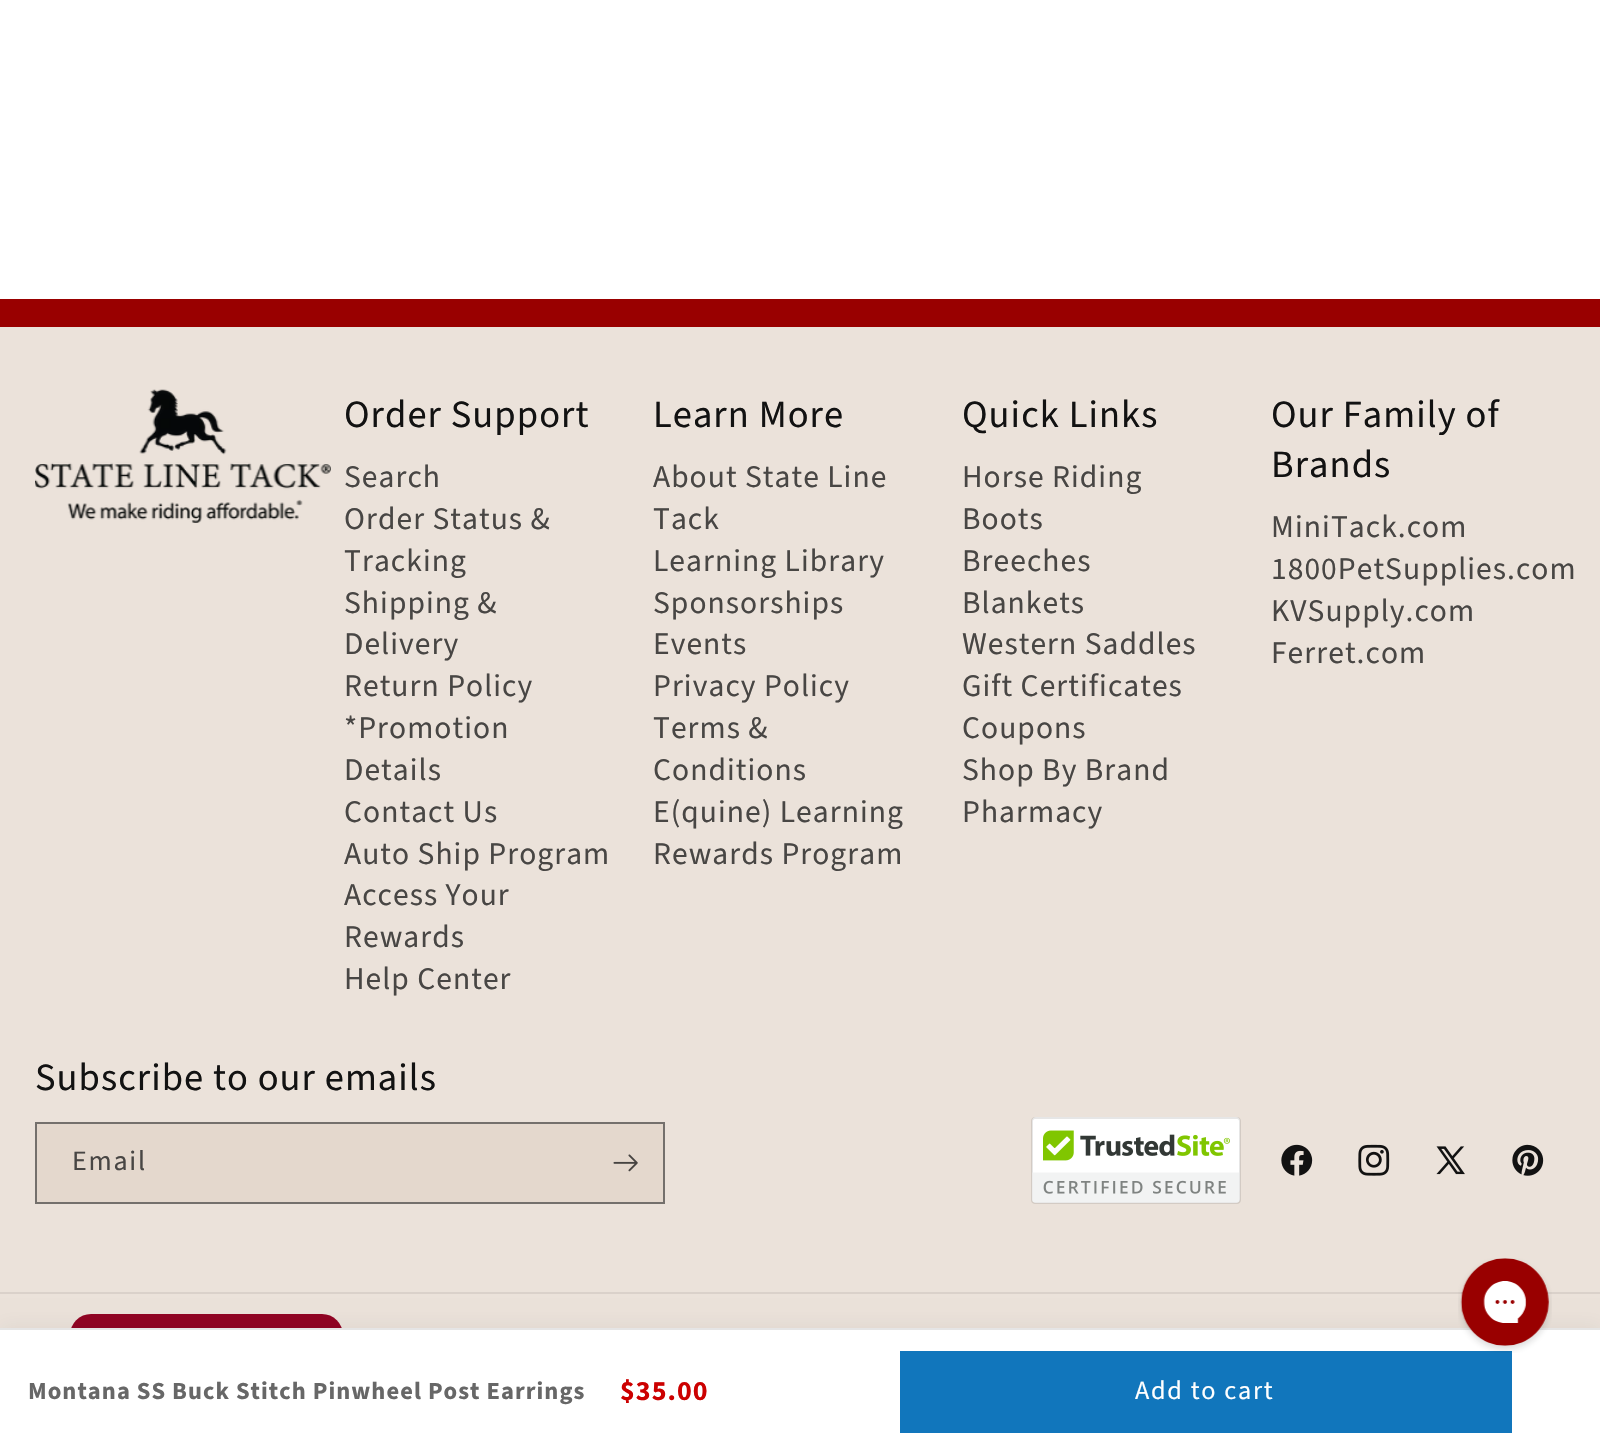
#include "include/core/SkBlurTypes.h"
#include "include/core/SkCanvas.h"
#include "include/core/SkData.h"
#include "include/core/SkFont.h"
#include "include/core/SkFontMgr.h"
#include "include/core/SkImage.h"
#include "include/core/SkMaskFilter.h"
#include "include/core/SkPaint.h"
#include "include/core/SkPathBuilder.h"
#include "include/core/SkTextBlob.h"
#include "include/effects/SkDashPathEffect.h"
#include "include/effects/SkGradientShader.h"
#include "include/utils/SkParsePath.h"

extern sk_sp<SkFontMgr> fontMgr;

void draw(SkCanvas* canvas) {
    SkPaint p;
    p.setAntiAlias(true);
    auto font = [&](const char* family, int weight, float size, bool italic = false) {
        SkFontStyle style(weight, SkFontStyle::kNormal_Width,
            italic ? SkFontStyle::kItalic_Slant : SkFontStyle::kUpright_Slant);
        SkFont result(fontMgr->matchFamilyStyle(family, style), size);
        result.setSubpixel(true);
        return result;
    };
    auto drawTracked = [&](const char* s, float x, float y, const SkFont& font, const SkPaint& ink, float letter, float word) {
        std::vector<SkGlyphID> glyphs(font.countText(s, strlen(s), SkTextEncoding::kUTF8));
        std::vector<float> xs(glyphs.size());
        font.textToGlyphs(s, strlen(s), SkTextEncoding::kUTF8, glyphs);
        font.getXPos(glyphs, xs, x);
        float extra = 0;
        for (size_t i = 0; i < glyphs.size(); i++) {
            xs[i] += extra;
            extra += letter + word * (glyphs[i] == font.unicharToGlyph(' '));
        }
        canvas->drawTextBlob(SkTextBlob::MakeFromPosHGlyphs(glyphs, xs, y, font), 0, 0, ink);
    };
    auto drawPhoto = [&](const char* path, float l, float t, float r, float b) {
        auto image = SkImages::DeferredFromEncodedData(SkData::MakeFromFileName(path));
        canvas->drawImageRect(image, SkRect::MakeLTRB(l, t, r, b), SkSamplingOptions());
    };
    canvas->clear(0xFFFFFFFF);
    p.setColor(0xFFEBE2DA);
    canvas->drawRect(SkRect::MakeLTRB(0, 327, 1600, 1328), p);
    p.setColor(0xFF990000);
    canvas->drawRect(SkRect::MakeLTRB(0, 299, 1600, 327), p);
    drawPhoto("media/1.png", 35, 389, 331, 523);
    auto font1 = font("Source Sans Pro", 400, 38.5f);
    p.setColor(0xFF121212);
    drawTracked("Order Support", 344, 427, font1, p, 1.05f, 0);
    auto font2 = font("Source Sans Pro", 400, 31.5f);
    p.setColor(0xFF484644);
    {
        const struct { const char* s; float x, y; } items[] = {
            {"Search", 344, 487},
            {"Order Status &", 344, 529},
            {"Tracking", 344, 571},
            {"Shipping &", 344, 613},
            {"Delivery", 344, 654},
            {"Return Policy", 344, 696},
            {"*Promotion", 344, 738},
            {"Details", 344, 780},
            {"Contact Us", 344, 822},
            {"Auto Ship Program", 344, 864},
            {"Access Your", 344, 905},
            {"Rewards", 344, 947},
            {"Help Center", 344, 989},
        };
        for (auto [s, x, y] : items) {
            drawTracked(s, x, y, font2, p, 1.05f, 0);
        }
    }
    p.setColor(0xFF121212);
    drawTracked("Learn More", 653, 427, font1, p, 1.05f, 0);
    p.setColor(0xFF484644);
    {
        const struct { const char* s; float x, y; } items[] = {
            {"About State Line", 653, 487},
            {"Tack", 653, 529},
            {"Learning Library", 653, 571},
            {"Sponsorships", 653, 613},
            {"Events", 653, 654},
            {"Privacy Policy", 653, 696},
            {"Terms &", 653, 738},
            {"Conditions", 653, 780},
            {"E(quine) Learning", 653, 822},
            {"Rewards Program", 653, 864},
        };
        for (auto [s, x, y] : items) {
            drawTracked(s, x, y, font2, p, 1.05f, 0);
        }
    }
    p.setColor(0xFF121212);
    drawTracked("Quick Links", 962, 427, font1, p, 1.05f, 0);
    p.setColor(0xFF484644);
    {
        const struct { const char* s; float x, y; } items[] = {
            {"Horse Riding", 962, 487},
            {"Boots", 962, 529},
            {"Breeches", 962, 571},
            {"Blankets", 962, 613},
            {"Western Saddles", 962, 654},
            {"Gift Certificates", 962, 696},
            {"Coupons", 962, 738},
            {"Shop By Brand", 962, 780},
            {"Pharmacy", 962, 822},
        };
        for (auto [s, x, y] : items) {
            drawTracked(s, x, y, font2, p, 1.05f, 0);
        }
    }
    p.setColor(0xFF121212);
    drawTracked("Our Family of", 1271, 427, font1, p, 1.05f, 0);
    drawTracked("Brands", 1271, 477, font1, p, 1.05f, 0);
    p.setColor(0xFF484644);
    {
        const struct { const char* s; float x, y; } items[] = {
            {"MiniTack.com", 1271, 537},
            {"1800PetSupplies.com", 1271, 579},
            {"KVSupply.com", 1271, 621},
            {"Ferret.com", 1271, 663},
        };
        for (auto [s, x, y] : items) {
            drawTracked(s, x, y, font2, p, 1.05f, 0);
        }
    }
    p.setColor(0xFF121212);
    drawTracked("Subscribe to our emails", 35, 1090, font1, p, 1.05f, 0);
    p.setColor(0xFFE4D8CD);
    canvas->drawRect(SkRect::MakeLTRB(37, 1124, 663, 1202), p);
    p.setStyle(SkPaint::kStroke_Style);
    p.setStrokeWidth(2);
    p.setColor(0xFF74706C);
    canvas->drawRect(SkRect::MakeLTRB(36, 1123, 664, 1203), p);
    auto font3 = font("Source Sans Pro", 400, 28);
    p.setStyle(SkPaint::kFill_Style);
    p.setColor(0xFF484644);
    drawTracked("Email", 72, 1170, font3, p, 1.75f, 0);
    drawPhoto("media/2.png", 613, 1154, 638, 1172);
    drawPhoto("media/3.png", 1031, 1117, 1241, 1204);
    drawPhoto("media/4.png", 1281, 1144, 1313, 1176);
    drawPhoto("media/5.png", 1358, 1144, 1390, 1176);
    drawPhoto("media/6.png", 1436, 1146, 1465, 1175);
    drawPhoto("media/7.png", 1512, 1144, 1544, 1176);
    p.setColor(0xFFDAD1CA);
    canvas->drawRect(SkRect::MakeLTRB(0, 1292, 1600, 1294), p);
    p.setColor(0xFF910323);
    canvas->drawRoundRect(SkRect::MakeLTRB(70, 1314, 343, 1412), 21, 21, p);
    p.setColor(0x0D000000);
    p.setMaskFilter(SkMaskFilter::MakeBlur(kNormal_SkBlurStyle, 9));
    canvas->drawRect(SkRect::MakeLTRB(0, 1325, 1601, 1451), p);
    p.setMaskFilter(nullptr);
    {
        const struct { float l, t, r, b; SkColor color; } items[] = {
            {0, 1330, 1600, 1454, 0xFFFFFFFF},
            {0, 1328, 1600, 1330, 0xFFE5E5E5},
            {900, 1351, 1512, 1433, 0xFF1176BC},
        };
        for (auto [l, t, r, b, color] : items) {
            p.setColor(color);
            canvas->drawRect(SkRect::MakeLTRB(l, t, r, b), p);
        }
    }
    drawPhoto("media/8.png", 1458, 1258, 1552, 1353);
    auto font4 = font("Source Sans Pro", 700, 24.5f);
    p.setColor(0xFF676767);
    drawTracked("Montana SS Buck Stitch Pinwheel Post Earrings", 28, 1399, font4, p, 1.05f, 0);
    auto font5 = font("Source Sans Pro", 700, 28);
    p.setColor(0xFFCC0000);
    drawTracked("$35.00", 620, 1400, font5, p, 1.05f, 0);
    auto font6 = font("Source Sans Pro", 400, 26.25f);
    p.setColor(0xFFFFFFFF);
    drawTracked("Add to cart", 1135, 1399, font6, p, 1.75f, 0);
}
